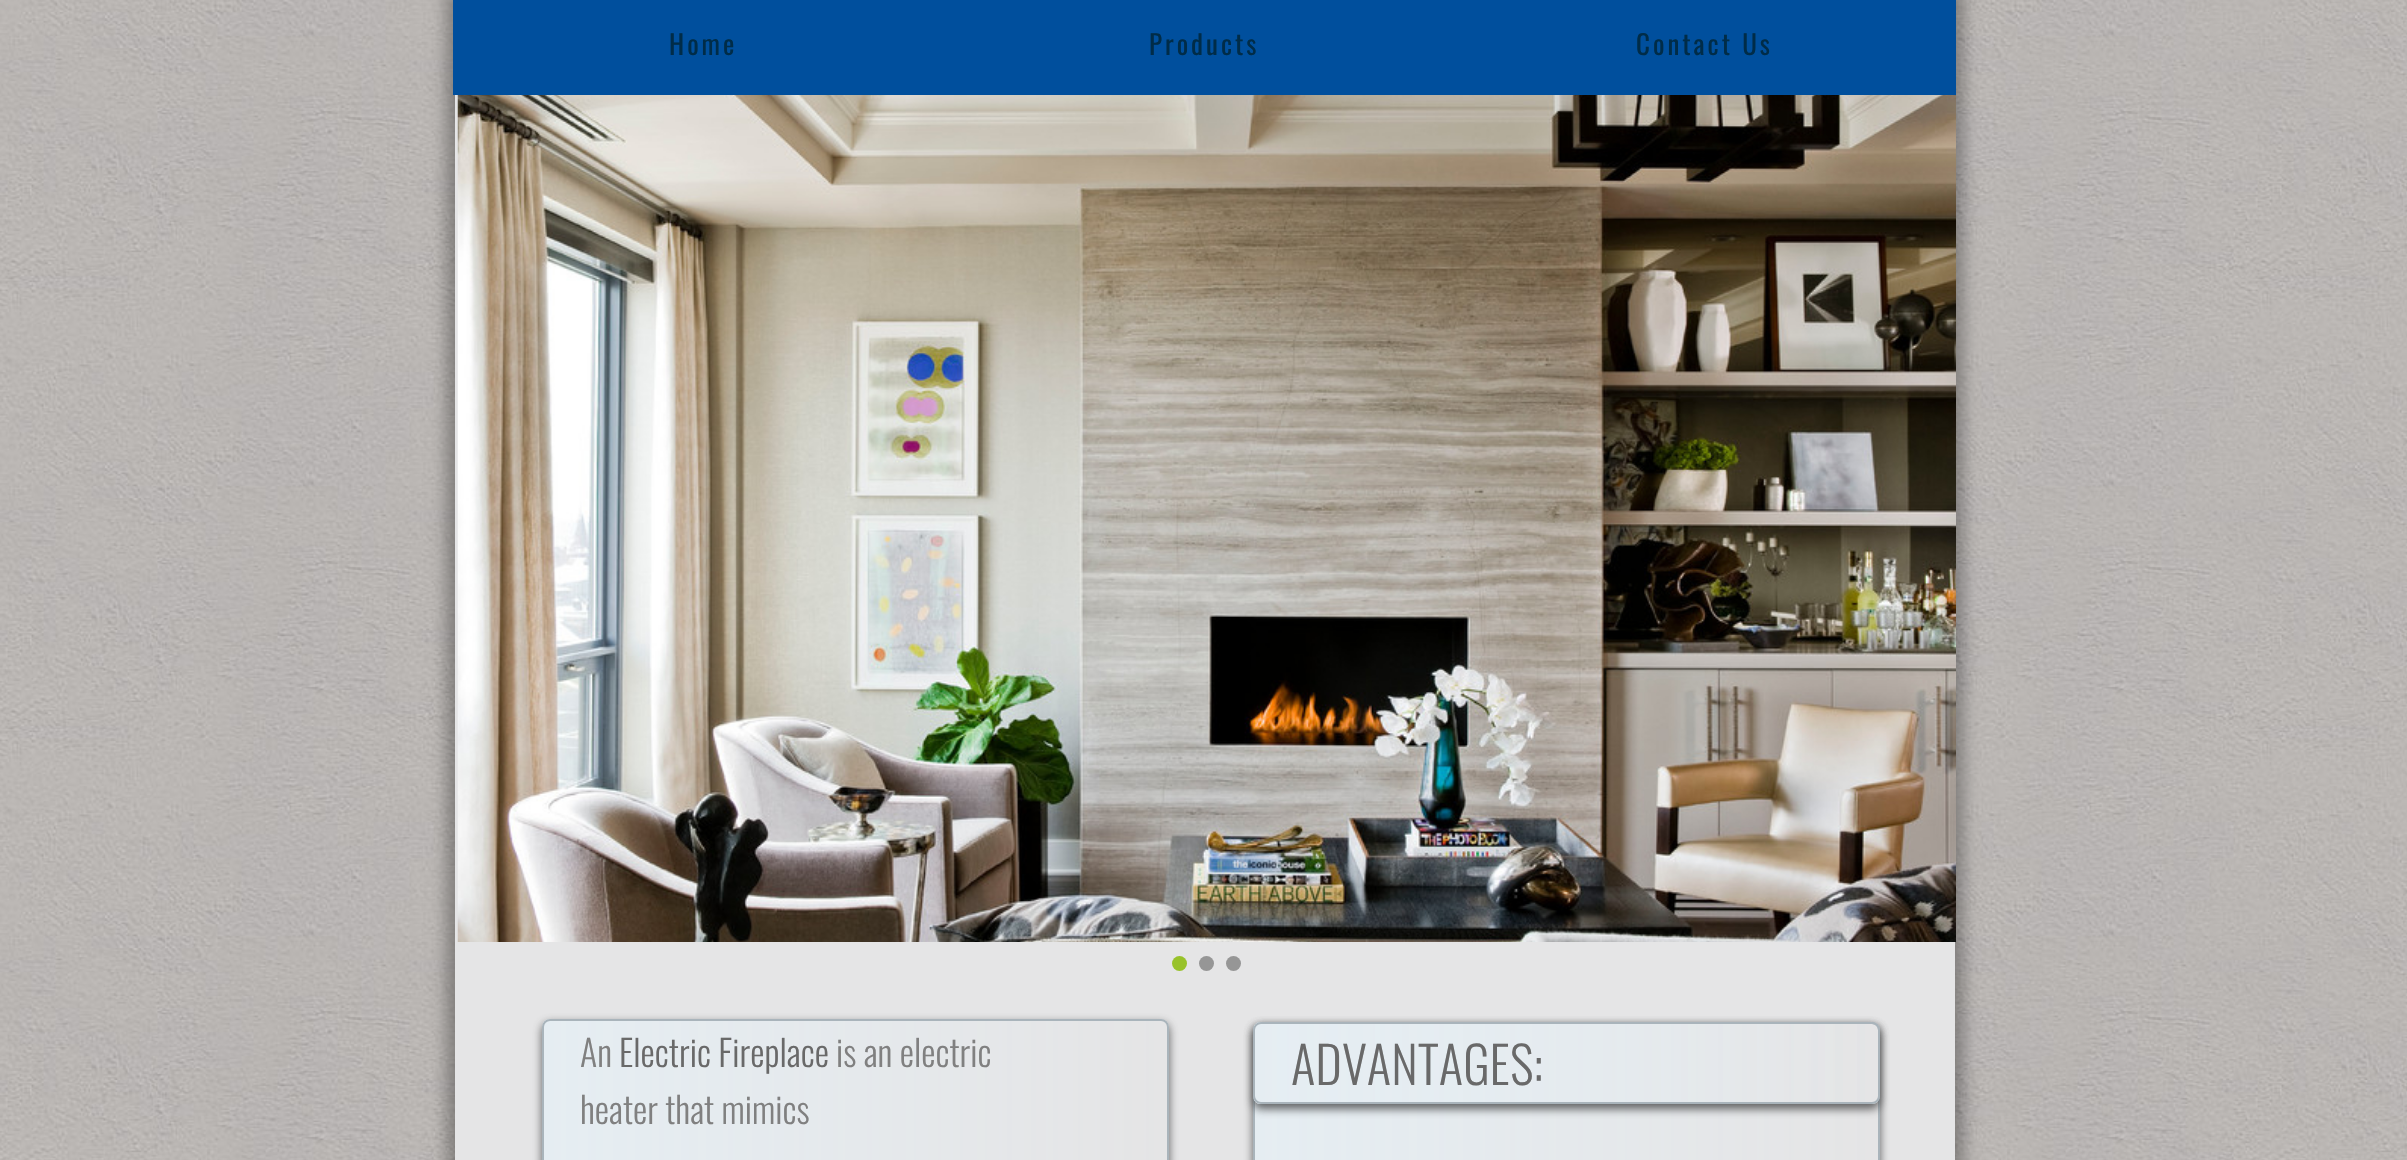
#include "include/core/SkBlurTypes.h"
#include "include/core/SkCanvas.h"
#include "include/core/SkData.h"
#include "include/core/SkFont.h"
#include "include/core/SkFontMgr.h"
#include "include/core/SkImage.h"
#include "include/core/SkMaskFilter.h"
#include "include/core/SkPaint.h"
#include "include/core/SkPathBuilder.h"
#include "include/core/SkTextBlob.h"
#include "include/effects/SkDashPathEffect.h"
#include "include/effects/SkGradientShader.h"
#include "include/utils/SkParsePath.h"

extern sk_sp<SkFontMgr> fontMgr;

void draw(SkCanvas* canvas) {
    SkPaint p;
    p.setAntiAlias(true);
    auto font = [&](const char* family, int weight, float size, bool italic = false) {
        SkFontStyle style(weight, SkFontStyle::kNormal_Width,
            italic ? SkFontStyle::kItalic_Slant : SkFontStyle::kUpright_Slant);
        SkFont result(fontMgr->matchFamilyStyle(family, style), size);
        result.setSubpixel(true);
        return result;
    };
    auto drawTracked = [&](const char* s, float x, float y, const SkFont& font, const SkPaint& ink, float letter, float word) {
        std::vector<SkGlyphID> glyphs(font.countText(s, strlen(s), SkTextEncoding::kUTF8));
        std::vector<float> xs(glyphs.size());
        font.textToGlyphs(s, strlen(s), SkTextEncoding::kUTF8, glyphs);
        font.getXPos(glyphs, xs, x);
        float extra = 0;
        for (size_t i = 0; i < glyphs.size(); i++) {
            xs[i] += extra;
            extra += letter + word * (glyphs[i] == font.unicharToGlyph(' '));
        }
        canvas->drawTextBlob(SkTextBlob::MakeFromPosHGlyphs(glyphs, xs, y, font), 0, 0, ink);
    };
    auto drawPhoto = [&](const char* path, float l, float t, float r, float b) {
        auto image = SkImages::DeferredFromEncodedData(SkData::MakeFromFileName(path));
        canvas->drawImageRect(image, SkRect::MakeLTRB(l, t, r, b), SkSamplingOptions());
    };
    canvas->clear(0xFFFFFFFF);
    drawPhoto("media/1.png", 0, 0, 2407, 1160);
    p.setColor(0x4D000000);
    p.setMaskFilter(SkMaskFilter::MakeBlur(kNormal_SkBlurStyle, 7.5f));
    canvas->drawRect(SkRect::MakeLTRB(446, -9, 1964, 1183), p);
    p.setMaskFilter(nullptr);
    p.setColor(0xFFE5E5E6);
    canvas->drawRect(SkRect::MakeLTRB(455, 95, 1955, 1160), p);
    p.setColor(0xFF004F9D);
    canvas->drawRect(SkRect::MakeLTRB(453, 0, 1956, 95), p);
    auto font1 = font("Oswald", 400, 27);
    p.setColor(0xFF002C48);
    {
        const struct { const char* s; float x, y; } items[] = {
            {"Home", 669, 55},
            {"Products", 1149, 55},
            {"Contact Us", 1636, 55},
        };
        for (auto [s, x, y] : items) {
            drawTracked(s, x, y, font1, p, 3, 0);
        }
    }
    drawPhoto("media/2.png", 457, 95, 1956, 942);
    p.setColor(0xFF98C22A);
    canvas->drawCircle(1179.5f, 963.5f, 7.5f, p);
    p.setColor(0xFF969696);
    canvas->drawCircle(1206.5f, 963.5f, 7.5f, p);
    canvas->drawCircle(1233.5f, 963.5f, 7.5f, p);
    canvas->save();
    canvas->clipPath(SkPathBuilder(SkPathFillType::kEvenOdd).moveTo(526, 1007).lineTo(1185, 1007).lineTo(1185, 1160).lineTo(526, 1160).close().moveTo(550, 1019).lineTo(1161, 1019).cubicTo(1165.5f, 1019, 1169, 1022.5f, 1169, 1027).lineTo(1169, 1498).cubicTo(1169, 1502.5f, 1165.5f, 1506, 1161, 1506).lineTo(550, 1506).cubicTo(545.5f, 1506, 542, 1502.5f, 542, 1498).lineTo(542, 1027).cubicTo(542, 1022.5f, 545.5f, 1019, 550, 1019).close().detach(), true);
    p.setColor(0xBF323232);
    p.setMaskFilter(SkMaskFilter::MakeBlur(kNormal_SkBlurStyle, 5));
    canvas->drawRoundRect(SkRect::MakeLTRB(542, 1023, 1169, 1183), 8, 8, p);
    p.setMaskFilter(nullptr);
    canvas->restore();
    canvas->save();
    canvas->clipPath(SkPathBuilder().moveTo(550, 1019).lineTo(1161, 1019).cubicTo(1165.5f, 1019, 1169, 1022.5f, 1169, 1027).lineTo(1169, 1498).cubicTo(1169, 1502.5f, 1165.5f, 1506, 1161, 1506).lineTo(550, 1506).cubicTo(545.5f, 1506, 542, 1502.5f, 542, 1498).lineTo(542, 1027).cubicTo(542, 1022.5f, 545.5f, 1019, 550, 1019).close().detach(), true);
    {
        const SkColor colors[] = {0xFFE5EDF2, 0x00E5EDF2};
        const float stops[] = {0, 1};
        const SkPoint ends[] = {{543, 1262}, {1167, 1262}};
        p.setShader(SkGradientShader::MakeLinear(ends, colors, stops, 2, SkTileMode::kClamp));
        p.setAlpha(255);
    }
    canvas->drawRect(SkRect::MakeLTRB(543, 1019, 1154, 1160), p);
    canvas->restore();
    p.setStyle(SkPaint::kStroke_Style);
    p.setStrokeWidth(2);
    p.setShader(nullptr);
    p.setColor(0xFFA9B4BB);
    canvas->drawRoundRect(SkRect::MakeLTRB(543, 1020, 1168, 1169), 7, 7, p);
    canvas->save();
    canvas->clipPath(SkPathBuilder(SkPathFillType::kEvenOdd).moveTo(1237, 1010).lineTo(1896, 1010).lineTo(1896, 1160).lineTo(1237, 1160).close().moveTo(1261, 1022).lineTo(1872, 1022).cubicTo(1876.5f, 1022, 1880, 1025.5f, 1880, 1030).lineTo(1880, 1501).cubicTo(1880, 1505.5f, 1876.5f, 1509, 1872, 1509).lineTo(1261, 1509).cubicTo(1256.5f, 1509, 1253, 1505.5f, 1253, 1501).lineTo(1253, 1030).cubicTo(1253, 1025.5f, 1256.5f, 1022, 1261, 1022).close().detach(), true);
    p.setStyle(SkPaint::kFill_Style);
    p.setColor(0xBF323232);
    p.setMaskFilter(SkMaskFilter::MakeBlur(kNormal_SkBlurStyle, 5));
    canvas->drawRoundRect(SkRect::MakeLTRB(1253, 1026, 1880, 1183), 8, 8, p);
    p.setMaskFilter(nullptr);
    canvas->restore();
    canvas->save();
    canvas->clipPath(SkPathBuilder().moveTo(1261, 1022).lineTo(1872, 1022).cubicTo(1876.5f, 1022, 1880, 1025.5f, 1880, 1030).lineTo(1880, 1501).cubicTo(1880, 1505.5f, 1876.5f, 1509, 1872, 1509).lineTo(1261, 1509).cubicTo(1256.5f, 1509, 1253, 1505.5f, 1253, 1501).lineTo(1253, 1030).cubicTo(1253, 1025.5f, 1256.5f, 1022, 1261, 1022).close().detach(), true);
    {
        const SkColor colors[] = {0xFFE5EDF2, 0x00E5EDF2};
        const float stops[] = {0, 1};
        const SkPoint ends[] = {{1254, 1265}, {1878, 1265}};
        p.setShader(SkGradientShader::MakeLinear(ends, colors, stops, 2, SkTileMode::kClamp));
        p.setAlpha(255);
    }
    canvas->drawRect(SkRect::MakeLTRB(1254, 1022, 1865, 1160), p);
    canvas->restore();
    p.setStyle(SkPaint::kStroke_Style);
    p.setShader(nullptr);
    p.setColor(0xFFA9B4BB);
    canvas->drawRoundRect(SkRect::MakeLTRB(1254, 1023, 1879, 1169), 7, 7, p);
    auto font2 = font("Oswald", 300, 36);
    p.setStyle(SkPaint::kFill_Style);
    p.setColor(0xFF808080);
    canvas->drawString("An", 580, 1067, font2, p);
    p.setColor(0xFF696969);
    canvas->drawString("Electric Fireplace", 619, 1067, font2, p);
    p.setColor(0xFF808080);
    canvas->drawString("is an electric", 836, 1067, font2, p);
    canvas->drawString("heater that mimics", 580, 1124, font2, p);
    canvas->save();
    canvas->clipPath(SkPathBuilder(SkPathFillType::kEvenOdd).moveTo(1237, 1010).lineTo(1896, 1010).lineTo(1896, 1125).lineTo(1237, 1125).close().moveTo(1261, 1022).lineTo(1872, 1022).cubicTo(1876.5f, 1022, 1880, 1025.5f, 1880, 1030).lineTo(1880, 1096).cubicTo(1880, 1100.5f, 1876.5f, 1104, 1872, 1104).lineTo(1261, 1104).cubicTo(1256.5f, 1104, 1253, 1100.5f, 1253, 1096).lineTo(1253, 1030).cubicTo(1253, 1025.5f, 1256.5f, 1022, 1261, 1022).close().detach(), true);
    p.setColor(0xBF323232);
    p.setMaskFilter(SkMaskFilter::MakeBlur(kNormal_SkBlurStyle, 5));
    canvas->drawRoundRect(SkRect::MakeLTRB(1253, 1026, 1880, 1109), 8, 8, p);
    p.setMaskFilter(nullptr);
    canvas->restore();
    canvas->save();
    canvas->clipPath(SkPathBuilder().moveTo(1261, 1022).lineTo(1872, 1022).cubicTo(1876.5f, 1022, 1880, 1025.5f, 1880, 1030).lineTo(1880, 1096).cubicTo(1880, 1100.5f, 1876.5f, 1104, 1872, 1104).lineTo(1261, 1104).cubicTo(1256.5f, 1104, 1253, 1100.5f, 1253, 1096).lineTo(1253, 1030).cubicTo(1253, 1025.5f, 1256.5f, 1022, 1261, 1022).close().detach(), true);
    {
        const SkColor colors[] = {0xFFE5EDF2, 0x00E5EDF2};
        const float stops[] = {0, 1};
        const SkPoint ends[] = {{1254, 1063}, {1878, 1063}};
        p.setShader(SkGradientShader::MakeLinear(ends, colors, stops, 2, SkTileMode::kClamp));
        p.setAlpha(255);
    }
    canvas->drawRect(SkRect::MakeLTRB(1254, 1022, 1865, 1104), p);
    canvas->restore();
    p.setStyle(SkPaint::kStroke_Style);
    p.setShader(nullptr);
    p.setColor(0xFFA9B4BB);
    canvas->drawRoundRect(SkRect::MakeLTRB(1254, 1023, 1879, 1103), 7, 7, p);
    auto font3 = font("Oswald", 300, 51);
    p.setStyle(SkPaint::kFill_Style);
    p.setColor(0xFF696969);
    canvas->drawString("ADVANTAGES:", 1291, 1085, font3, p);
}
